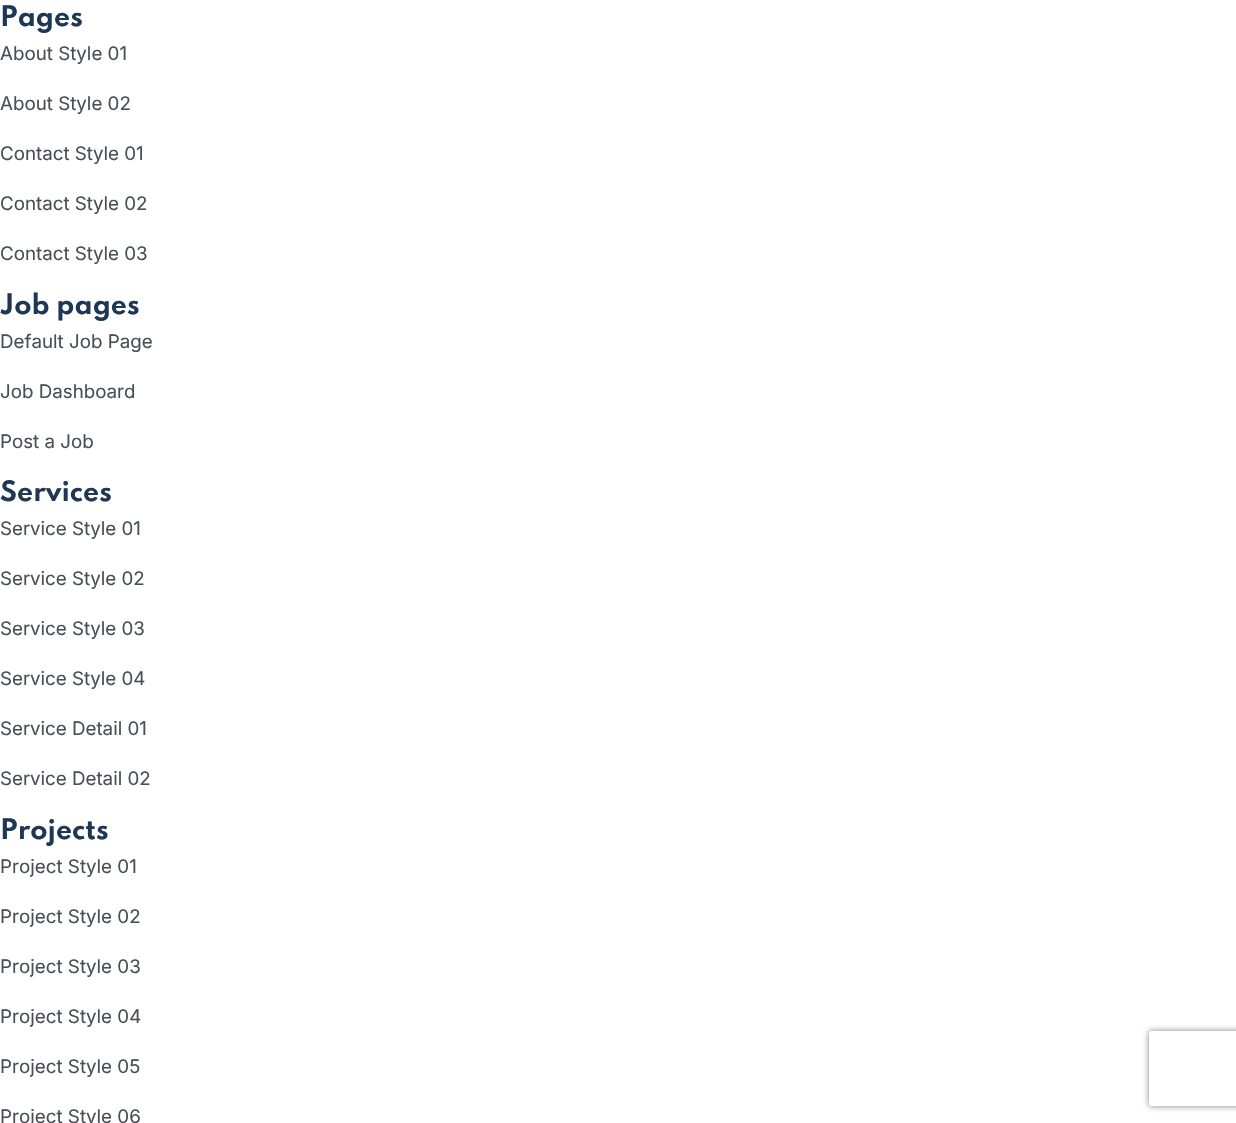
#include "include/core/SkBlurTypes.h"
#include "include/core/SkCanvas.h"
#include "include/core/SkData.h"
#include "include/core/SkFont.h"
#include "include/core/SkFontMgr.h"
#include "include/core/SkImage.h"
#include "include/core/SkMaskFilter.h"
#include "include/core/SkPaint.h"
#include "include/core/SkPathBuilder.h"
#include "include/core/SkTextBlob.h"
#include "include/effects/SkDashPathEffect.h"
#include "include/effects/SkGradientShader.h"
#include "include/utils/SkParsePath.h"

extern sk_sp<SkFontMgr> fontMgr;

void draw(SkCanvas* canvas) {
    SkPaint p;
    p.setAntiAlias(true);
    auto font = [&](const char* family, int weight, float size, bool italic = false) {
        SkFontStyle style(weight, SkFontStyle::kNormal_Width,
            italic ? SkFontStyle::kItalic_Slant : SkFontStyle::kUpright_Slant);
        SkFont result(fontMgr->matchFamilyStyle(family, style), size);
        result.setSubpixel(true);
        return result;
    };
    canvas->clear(0xFFFFFFFF);
    auto font1 = font("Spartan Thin", 700, 25);
    p.setColor(0xFF1E3754);
    canvas->drawString("Pages", 0, 26, font1, p);
    auto font2 = font("Inter", 400, 18.75f);
    p.setColor(0xFF4A4E56);
    {
        const struct { const char* s; float x, y; } items[] = {
            {"About Style 01", 0, 60},
            {"About Style 02", 0, 110},
            {"Contact Style 01", 0, 160},
            {"Contact Style 02", 0, 210},
            {"Contact Style 03", 0, 260},
        };
        for (auto [s, x, y] : items) {
            canvas->drawString(s, x, y, font2, p);
        }
    }
    p.setColor(0xFF1E3754);
    canvas->drawString("Job pages", 0, 314, font1, p);
    p.setColor(0xFF4A4E56);
    {
        const struct { const char* s; float x, y; } items[] = {
            {"Default Job Page", 0, 348},
            {"Job Dashboard", 0, 398},
            {"Post a Job", 0, 448},
        };
        for (auto [s, x, y] : items) {
            canvas->drawString(s, x, y, font2, p);
        }
    }
    p.setColor(0xFF1E3754);
    canvas->drawString("Services", 0, 501, font1, p);
    p.setColor(0xFF4A4E56);
    {
        const struct { const char* s; float x, y; } items[] = {
            {"Service Style 01", 0, 535},
            {"Service Style 02", 0, 585},
            {"Service Style 03", 0, 635},
            {"Service Style 04", 0, 685},
            {"Service Detail 01", 0, 735},
            {"Service Detail 02", 0, 785},
        };
        for (auto [s, x, y] : items) {
            canvas->drawString(s, x, y, font2, p);
        }
    }
    p.setColor(0xFF1E3754);
    canvas->drawString("Projects", 0, 839, font1, p);
    p.setColor(0xFF4A4E56);
    {
        const struct { const char* s; float x, y; } items[] = {
            {"Project Style 01", 0, 873},
            {"Project Style 02", 0, 923},
            {"Project Style 03", 0, 973},
            {"Project Style 04", 0, 1023},
            {"Project Style 05", 0, 1073},
            {"Project Style 06", 0, 1123},
        };
        for (auto [s, x, y] : items) {
            canvas->drawString(s, x, y, font2, p);
        }
    }
    canvas->save();
    canvas->clipPath(SkPathBuilder(SkPathFillType::kEvenOdd).moveTo(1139, 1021).lineTo(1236, 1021).lineTo(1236, 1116).lineTo(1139, 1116).close().moveTo(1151.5f, 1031).lineTo(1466.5f, 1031).cubicTo(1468, 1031, 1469, 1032, 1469, 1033.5f).lineTo(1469, 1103.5f).cubicTo(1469, 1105, 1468, 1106, 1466.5f, 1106).lineTo(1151.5f, 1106).cubicTo(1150, 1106, 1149, 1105, 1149, 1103.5f).lineTo(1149, 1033.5f).cubicTo(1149, 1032, 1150, 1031, 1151.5f, 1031).close().detach(), true);
    p.setColor(0xFF808080);
    p.setMaskFilter(SkMaskFilter::MakeBlur(kNormal_SkBlurStyle, 3));
    canvas->drawRoundRect(SkRect::MakeLTRB(1149, 1031, 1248, 1106), 2.5f, 2.5f, p);
    p.setMaskFilter(nullptr);
    canvas->restore();
}
